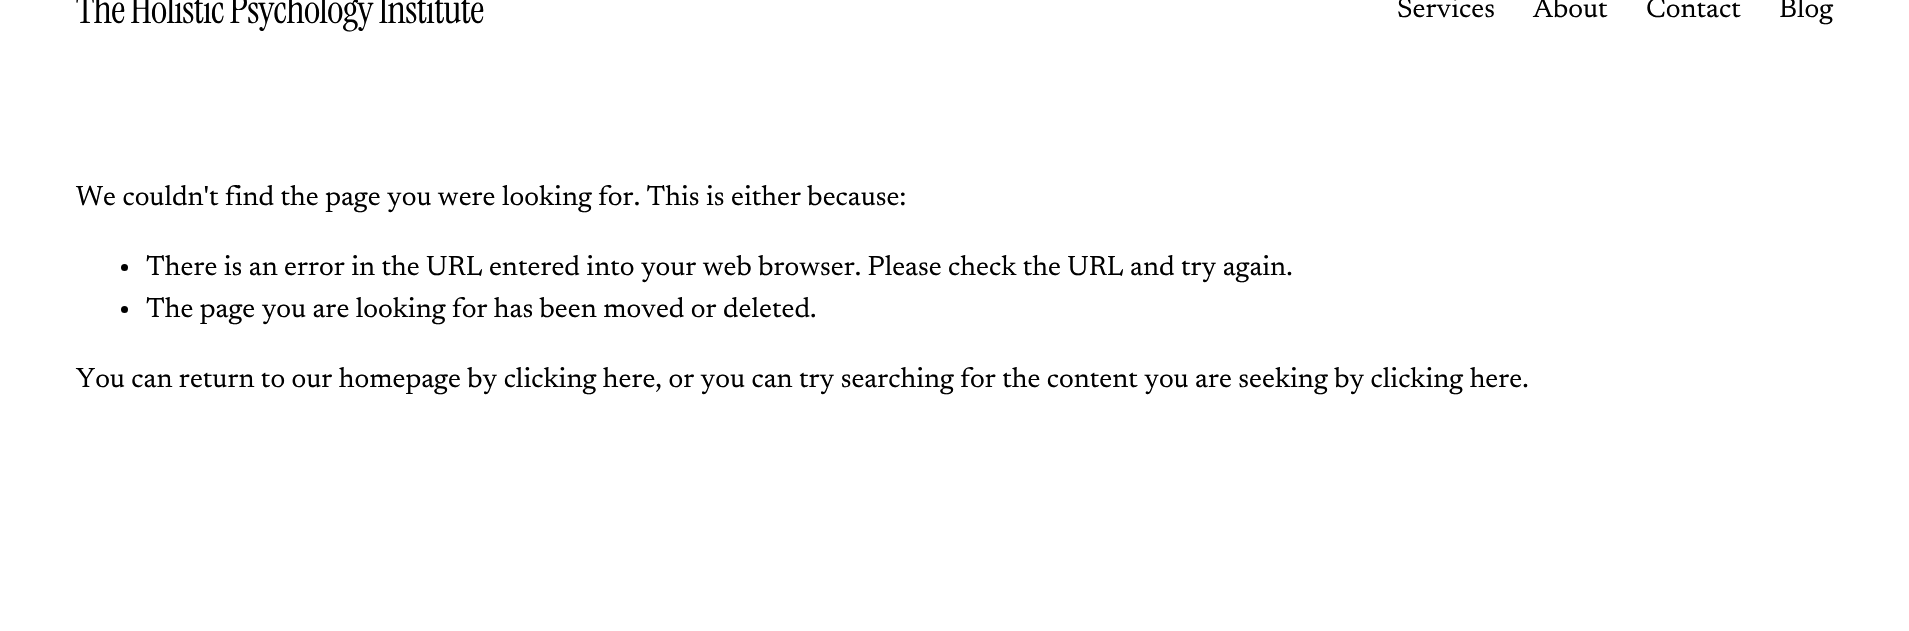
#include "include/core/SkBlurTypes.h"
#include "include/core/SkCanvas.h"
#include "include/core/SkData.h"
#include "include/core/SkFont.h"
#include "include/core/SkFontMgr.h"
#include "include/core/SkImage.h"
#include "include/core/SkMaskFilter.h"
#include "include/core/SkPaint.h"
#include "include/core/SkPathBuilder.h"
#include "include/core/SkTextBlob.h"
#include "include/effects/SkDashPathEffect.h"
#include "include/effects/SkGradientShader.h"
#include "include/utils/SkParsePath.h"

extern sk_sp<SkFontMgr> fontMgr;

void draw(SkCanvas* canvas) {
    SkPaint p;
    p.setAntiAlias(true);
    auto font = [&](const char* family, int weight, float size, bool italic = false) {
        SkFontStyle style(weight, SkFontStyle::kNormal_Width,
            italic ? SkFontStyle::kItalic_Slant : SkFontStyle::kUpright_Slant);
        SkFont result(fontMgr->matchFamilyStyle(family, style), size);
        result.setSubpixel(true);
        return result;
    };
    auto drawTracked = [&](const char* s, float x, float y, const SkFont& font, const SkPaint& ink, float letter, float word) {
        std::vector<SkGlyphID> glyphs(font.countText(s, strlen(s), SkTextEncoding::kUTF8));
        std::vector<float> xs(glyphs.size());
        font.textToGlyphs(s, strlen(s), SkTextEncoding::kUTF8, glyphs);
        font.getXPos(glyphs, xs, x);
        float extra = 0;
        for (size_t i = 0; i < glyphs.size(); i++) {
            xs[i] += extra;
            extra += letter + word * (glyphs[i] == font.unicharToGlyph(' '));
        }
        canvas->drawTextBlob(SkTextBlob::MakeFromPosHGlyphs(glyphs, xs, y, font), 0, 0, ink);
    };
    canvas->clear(0xFFFFFFFF);
    auto font1 = font("Instrument Serif", 400, 39.5f);
    p.setColor(0xFF000000);
    drawTracked("The Holistic Psychology Institute", 76, 23, font1, p, -0.8f, 0);
    auto font2 = font("Newsreader", 400, 28);
    {
        const struct { const char* s; float x, y; } items[] = {
            {"Services", 1397, 17},
            {"About", 1533, 17},
            {"Contact", 1646, 17},
            {"Blog", 1779, 17},
            {"We couldn't find the page you were looking for. This is either because:", 76, 205},
        };
        for (auto [s, x, y] : items) {
            canvas->drawString(s, x, y, font2, p);
        }
    }
    canvas->drawCircle(124.5f, 267.5f, 3.5f, p);
    canvas->drawString("There is an error in the URL entered into your web browser. Please check the URL and try again.", 146, 275, font2, p);
    canvas->drawCircle(124.5f, 309.5f, 3.5f, p);
    canvas->drawString("The page you are looking for has been moved or deleted.", 146, 317, font2, p);
    canvas->drawString("You can return to our homepage by clicking here, or you can try searching for the content you are seeking by clicking here.", 76, 387, font2, p);
}
